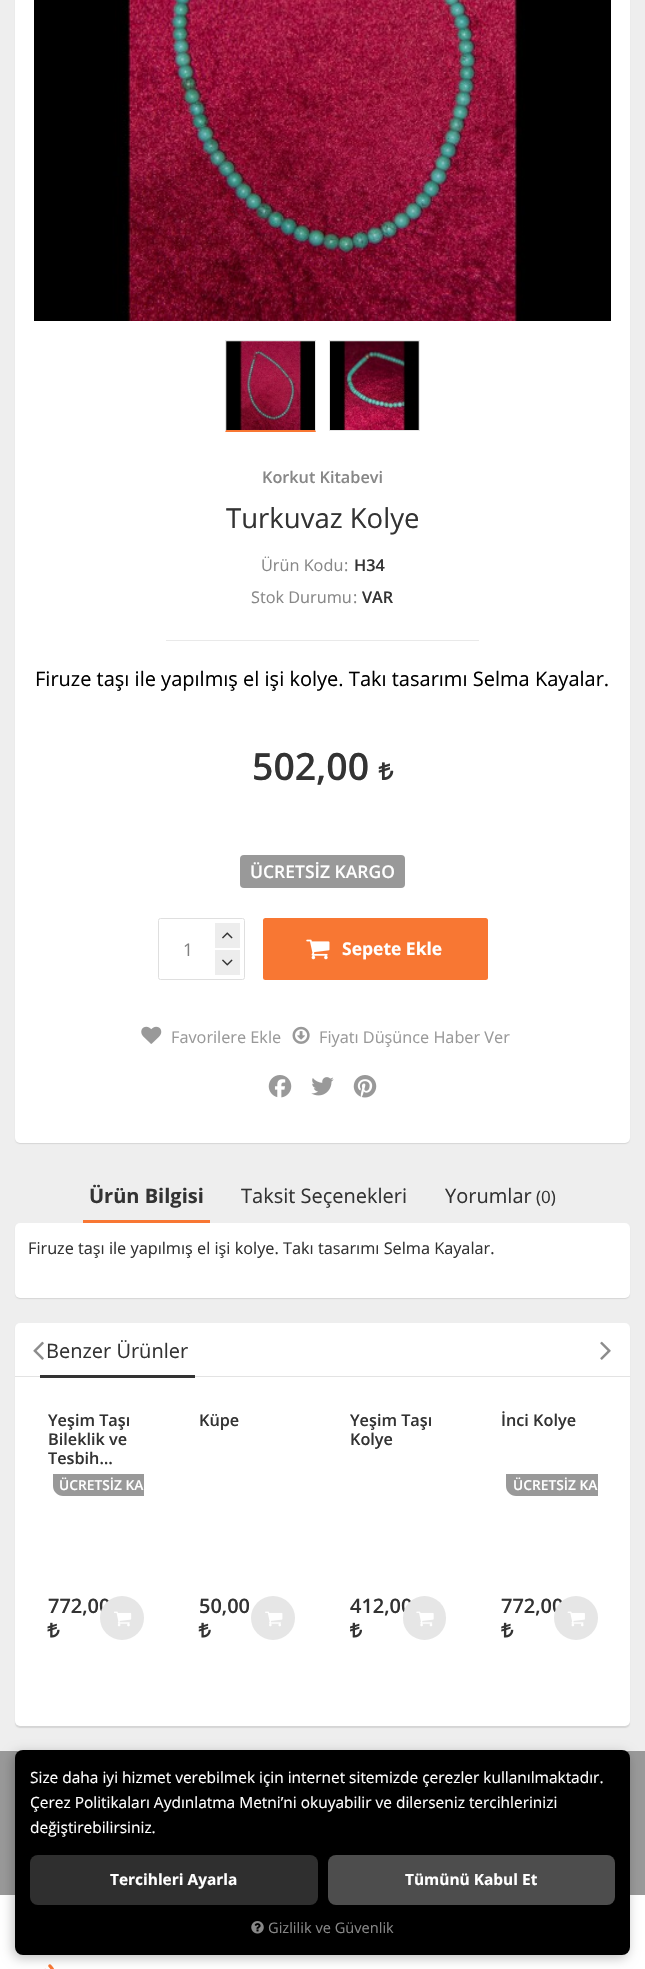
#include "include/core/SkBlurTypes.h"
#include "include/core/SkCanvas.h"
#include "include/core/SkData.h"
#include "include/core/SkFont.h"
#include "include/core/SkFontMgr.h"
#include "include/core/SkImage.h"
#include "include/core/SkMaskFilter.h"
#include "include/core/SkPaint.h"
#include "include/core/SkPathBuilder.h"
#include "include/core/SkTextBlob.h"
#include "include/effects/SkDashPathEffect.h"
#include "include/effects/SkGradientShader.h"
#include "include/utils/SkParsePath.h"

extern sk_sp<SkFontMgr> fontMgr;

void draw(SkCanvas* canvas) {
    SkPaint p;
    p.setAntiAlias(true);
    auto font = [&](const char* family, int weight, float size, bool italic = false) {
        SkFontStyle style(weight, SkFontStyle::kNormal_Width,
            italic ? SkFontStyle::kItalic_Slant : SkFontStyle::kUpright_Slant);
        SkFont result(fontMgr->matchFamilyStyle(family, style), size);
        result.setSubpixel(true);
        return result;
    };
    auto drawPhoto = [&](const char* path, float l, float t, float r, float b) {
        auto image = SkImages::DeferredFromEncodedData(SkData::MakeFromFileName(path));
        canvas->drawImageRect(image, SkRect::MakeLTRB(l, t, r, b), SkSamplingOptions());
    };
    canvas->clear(0xFFEEEEEE);
    p.setColor(0x1A000000);
    p.setMaskFilter(SkMaskFilter::MakeBlur(kNormal_SkBlurStyle, 0.5f));
    canvas->drawRoundRect(SkRect::MakeLTRB(15, -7, 630, 1144), 5, 5, p);
    p.setMaskFilter(nullptr);
    p.setColor(0xFFFFFFFF);
    canvas->drawRoundRect(SkRect::MakeLTRB(15, -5, 630, 1143), 5, 5, p);
    drawPhoto("media/1.png", 34, 0, 611, 321);
    p.setColor(0xFFE6E6E6);
    canvas->drawRect(SkRect::MakeLTRB(225, 340, 316, 341), p);
    canvas->drawPath(SkPathBuilder().moveTo(316, 340).lineTo(316, 432).lineTo(315, 430).lineTo(315, 341).close().detach(), p);
    p.setColor(0xFFF87733);
    canvas->drawPath(SkPathBuilder().moveTo(316, 432).lineTo(225, 432).lineTo(226, 430).lineTo(315, 430).close().detach(), p);
    p.setColor(0xFFE6E6E6);
    canvas->drawPath(SkPathBuilder().moveTo(225, 432).lineTo(225, 340).lineTo(226, 341).lineTo(226, 430).close().detach(), p);
    drawPhoto("media/2.png", 226, 341, 315, 430);
    p.setStyle(SkPaint::kStroke_Style);
    p.setStrokeWidth(1);
    canvas->drawRect(SkRect::MakeLTRB(329.5f, 340.5f, 419.5f, 430.5f), p);
    drawPhoto("media/3.png", 330, 341, 419, 430);
    auto font1 = font("Open Sans", 600, 16.25f);
    p.setStyle(SkPaint::kFill_Style);
    p.setColor(0xFF878787);
    canvas->drawString("Korkut Kitabevi", 262, 483, font1, p);
    auto font2 = font("Open Sans", 400, 27.5f);
    p.setColor(0xFF333333);
    canvas->drawString("Turkuvaz Kolye", 226, 528, font2, p);
    p.setColor(0xFFE9E9E9);
    canvas->drawRect(SkRect::MakeLTRB(166, 640, 479, 641), p);
    auto font3 = font("Open Sans", 400, 16.25f);
    p.setColor(0xFF878787);
    canvas->drawString("Ürün Kodu", 261, 571, font3, p);
    canvas->drawString(":", 344, 571, font3, p);
    p.setColor(0xFF333333);
    canvas->drawString("H34", 354, 571, font1, p);
    p.setColor(0xFF878787);
    canvas->drawString("Stok Durumu", 251, 603, font3, p);
    canvas->drawString(":", 353, 603, font3, p);
    p.setColor(0xFF333333);
    canvas->drawString("VAR", 362, 603, font1, p);
    auto font4 = font("Open Sans", 400, 20);
    p.setColor(0xFF000000);
    canvas->drawString("Firuze taşı ile yapılmış el işi kolye. Takı tasarımı Selma Kayalar.", 35, 686, font4, p);
    auto font5 = font("Open Sans", 600, 37.5f);
    p.setColor(0xFF333333);
    canvas->drawString("502,00", 252, 780, font5, p);
    drawPhoto("media/4.png", 378, 762, 394, 780);
    p.setColor(0xFF999999);
    canvas->drawRoundRect(SkRect::MakeLTRB(240, 855, 405, 888), 4, 4, p);
    auto font6 = font("Open Sans", 600, 17.5f);
    p.setColor(0xFFFFFFFF);
    canvas->drawString("ÜCRETSİZ KARGO", 250, 878, font6, p);
    p.setStyle(SkPaint::kStroke_Style);
    p.setColor(0xFFDFDFDF);
    canvas->drawRoundRect(SkRect::MakeLTRB(158.5f, 918.5f, 244.5f, 979.5f), 2, 2, p);
    auto font7 = font("Open Sans", 400, 17.5f);
    p.setStyle(SkPaint::kFill_Style);
    p.setColor(0xFF818181);
    canvas->drawString("1", 183, 956, font7, p);
    p.setColor(0xFFEDEDED);
    canvas->drawRect(SkRect::MakeLTRB(215, 923, 240, 948), p);
    drawPhoto("media/5.png", 222, 932, 233, 939);
    canvas->drawRect(SkRect::MakeLTRB(215, 950, 240, 975), p);
    drawPhoto("media/6.png", 222, 959, 233, 966);
    p.setColor(0xFFF87733);
    canvas->drawRoundRect(SkRect::MakeLTRB(263, 918, 488, 980), 2.5f, 2.5f, p);
    drawPhoto("media/7.png", 306, 939, 330, 960);
    auto font8 = font("Open Sans", 700, 17.5f);
    p.setColor(0xFFFFFFFF);
    canvas->drawString("Sepete Ekle", 342, 955, font8, p);
    drawPhoto("media/8.png", 141, 1026, 162, 1044);
    p.setColor(0xFF999999);
    canvas->drawString("Favorilere Ekle", 171, 1043, font3, p);
    drawPhoto("media/9.png", 292, 1026, 310, 1044);
    canvas->drawString("Fiyatı Düşünce Haber Ver", 319, 1043, font3, p);
    drawPhoto("media/10.png", 268, 1075, 292, 1098);
    drawPhoto("media/11.png", 311, 1077, 334, 1096);
    drawPhoto("media/12.png", 353, 1075, 377, 1098);
    p.setColor(0x1A000000);
    p.setMaskFilter(SkMaskFilter::MakeBlur(kNormal_SkBlurStyle, 0.5f));
    canvas->drawRoundRect(SkRect::MakeLTRB(15, 1224, 630, 1299), 5, 5, p);
    p.setMaskFilter(nullptr);
    p.setColor(0xFFF87733);
    canvas->drawRect(SkRect::MakeLTRB(83, 1220, 210, 1223), p);
    auto font9 = font("Open Sans", 700, 20);
    p.setColor(0xFF333333);
    canvas->drawString("Ürün Bilgisi", 89, 1203, font9, p);
    canvas->drawString("Taksit Seçenekleri", 241, 1203, font4, p);
    canvas->drawString("Yorumlar", 445, 1203, font4, p);
    auto font10 = font("Open Sans", 400, 17);
    canvas->drawString("(0)", 536, 1203, font10, p);
    p.setColor(0xFFFFFFFF);
    canvas->drawRoundRect(SkRect::MakeLTRB(15, 1223, 630, 1298), 5, 5, p);
    p.setColor(0xFF333333);
    canvas->drawString("Firuze taşı ile yapılmış el işi kolye. Takı tasarımı Selma Kayalar.", 28, 1254, font3, p);
    p.setColor(0x1A000000);
    p.setMaskFilter(SkMaskFilter::MakeBlur(kNormal_SkBlurStyle, 0.5f));
    canvas->drawRoundRect(SkRect::MakeLTRB(15, 1324, 630, 1728), 5, 5, p);
    p.setMaskFilter(nullptr);
    p.setColor(0xFFFFFFFF);
    canvas->drawRoundRect(SkRect::MakeLTRB(15, 1323, 630, 1726), 5, 5, p);
    p.setColor(0xFFE3E3E3);
    canvas->drawRect(SkRect::MakeLTRB(15, 1376, 630, 1377), p);
    p.setColor(0xFF333333);
    canvas->drawRect(SkRect::MakeLTRB(40, 1375, 195, 1378), p);
    canvas->drawString("Benzer Ürünler", 46, 1358, font4, p);
    drawPhoto("media/13.png", 33, 1341, 44, 1360);
    drawPhoto("media/14.png", 600, 1341, 611, 1360);
    {
        const struct { const char* s; float x, y; } items[] = {
            {"Yeşim Taşı", 48, 1426},
            {"Bileklik ve", 48, 1445},
            {"Tesbih…", 48, 1464},
        };
        for (auto [s, x, y] : items) {
            canvas->drawString(s, x, y, font1, p);
        }
    }
    p.setColor(0xFF999999);
    canvas->drawPath(SkPathBuilder().moveTo(53, 1474).lineTo(144, 1474).lineTo(144, 1496).lineTo(63, 1496).cubicTo(57.5f, 1496, 53, 1491.5f, 53, 1486).close().detach(), p);
    auto font11 = font("Open Sans", 600, 13.75f);
    p.setColor(0xFFFFFFFF);
    canvas->drawString("ÜCRETSİZ KA", 59, 1490, font11, p);
    auto font12 = font("Open Sans", 600, 20);
    p.setColor(0xFF333333);
    canvas->drawString("772,00", 48, 1613, font12, p);
    drawPhoto("media/15.png", 47, 1622, 60, 1638);
    p.setColor(0xFFE6E6E6);
    canvas->drawCircle(122, 1618, 22, p);
    drawPhoto("media/16.png", 114, 1611, 132, 1627);
    p.setColor(0xFF333333);
    canvas->drawString("Küpe", 199, 1426, font1, p);
    canvas->drawString("50,00", 199, 1613, font12, p);
    drawPhoto("media/17.png", 198, 1622, 211, 1638);
    p.setColor(0xFFE6E6E6);
    canvas->drawCircle(273, 1618, 22, p);
    drawPhoto("media/18.png", 265, 1611, 283, 1627);
    p.setColor(0xFF333333);
    canvas->drawString("Yeşim Taşı", 350, 1426, font1, p);
    canvas->drawString("Kolye", 350, 1445, font1, p);
    canvas->drawString("412,00", 350, 1613, font12, p);
    drawPhoto("media/19.png", 350, 1622, 362, 1638);
    p.setColor(0xFFE6E6E6);
    canvas->drawRoundRect(SkRect::MakeLTRB(403, 1596, 446, 1640), 21.5f, 21.5f, p);
    drawPhoto("media/20.png", 416, 1611, 434, 1627);
    p.setColor(0xFF333333);
    canvas->drawString("İnci Kolye", 501, 1426, font1, p);
    p.setColor(0xFF999999);
    canvas->drawPath(SkPathBuilder().moveTo(506, 1474).lineTo(598, 1474).lineTo(598, 1496).lineTo(516, 1496).cubicTo(510.5f, 1496, 506, 1491.5f, 506, 1486).close().detach(), p);
    p.setColor(0xFFFFFFFF);
    canvas->drawString("ÜCRETSİZ KA", 513, 1490, font11, p);
    p.setColor(0xFF333333);
    canvas->drawString("772,00", 501, 1613, font12, p);
    drawPhoto("media/21.png", 501, 1622, 514, 1638);
    p.setColor(0xFFE6E6E6);
    canvas->drawCircle(576, 1618, 22, p);
    drawPhoto("media/22.png", 567, 1611, 585, 1627);
    p.setColor(0xFF999999);
    canvas->drawRect(SkRect::MakeLTRB(0, 1751, 645, 1895), p);
    p.setColor(0xFFFFFFFF);
    canvas->drawRect(SkRect::MakeLTRB(0, 1895, 645, 1969), p);
    drawPhoto("media/24.png", 44, 1964, 54, 1969);
    p.setColor(0x40000000);
    p.setMaskFilter(SkMaskFilter::MakeBlur(kNormal_SkBlurStyle, 6));
    canvas->drawRoundRect(SkRect::MakeLTRB(13, 1753, 628, 1958), 8, 8, p);
    p.setMaskFilter(nullptr);
    p.setColor(0xFF000000);
    canvas->drawRoundRect(SkRect::MakeLTRB(15, 1750, 630, 1955), 8, 8, p);
    auto font13 = font("Open Sans", 400, 15.45f);
    p.setColor(0xFFFFFFFF);
    {
        const struct { const char* s; float x, y; } items[] = {
            {"Size daha iyi hizmet verebilmek için internet sitemizde çerezler kullanılmaktadır.", 30, 1783},
            {"Çerez Politikaları Aydınlatma Metni’ni okuyabilir ve dilerseniz tercihlerinizi", 30, 1808},
            {"değiştirebilirsiniz.", 30, 1833},
        };
        for (auto [s, x, y] : items) {
            canvas->drawString(s, x, y, font13, p);
        }
    }
    p.setColor(0xFF2F2F2F);
    canvas->drawRoundRect(SkRect::MakeLTRB(30, 1855, 318, 1905), 8, 8, p);
    auto font14 = font("Open Sans", 700, 15.45f);
    p.setColor(0xFFFFFFFF);
    canvas->drawString("Tercihleri Ayarla", 110, 1885, font14, p);
    p.setColor(0xFF4D4D4D);
    canvas->drawRoundRect(SkRect::MakeLTRB(328, 1855, 615, 1905), 8, 8, p);
    p.setColor(0xFFFFFFFF);
    canvas->drawString("Tümünü Kabul Et", 405, 1885, font14, p);
    drawPhoto("media/23.png", 251, 1921, 264, 1934);
    auto font15 = font("Open Sans", 400, 14.6f);
    p.setColor(0xFF878787);
    canvas->drawString("Gizlilik ve Güvenlik", 268, 1933, font15, p);
}
